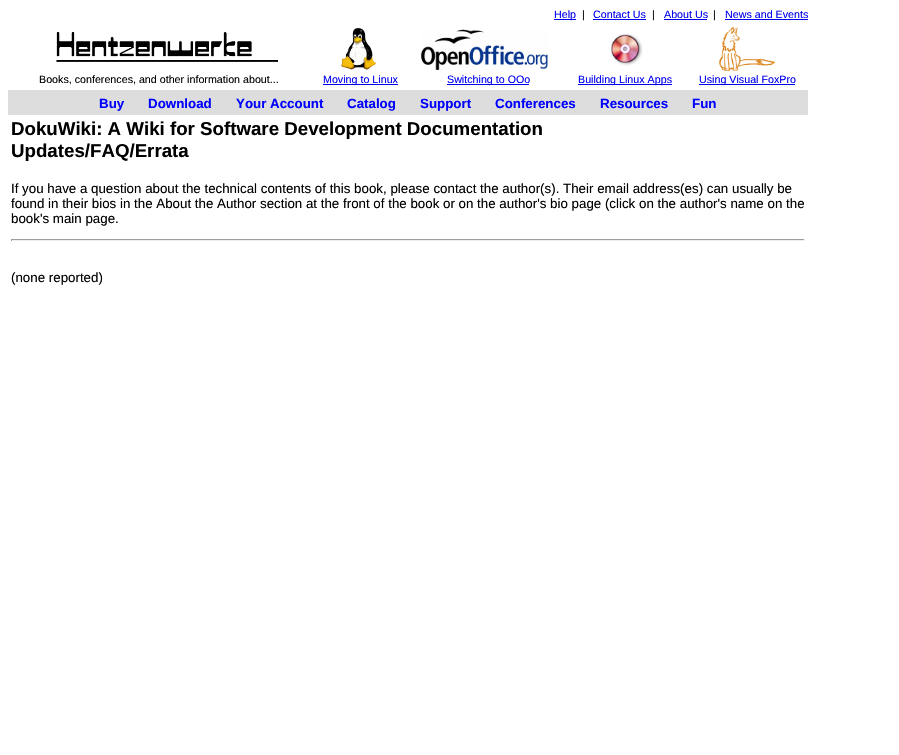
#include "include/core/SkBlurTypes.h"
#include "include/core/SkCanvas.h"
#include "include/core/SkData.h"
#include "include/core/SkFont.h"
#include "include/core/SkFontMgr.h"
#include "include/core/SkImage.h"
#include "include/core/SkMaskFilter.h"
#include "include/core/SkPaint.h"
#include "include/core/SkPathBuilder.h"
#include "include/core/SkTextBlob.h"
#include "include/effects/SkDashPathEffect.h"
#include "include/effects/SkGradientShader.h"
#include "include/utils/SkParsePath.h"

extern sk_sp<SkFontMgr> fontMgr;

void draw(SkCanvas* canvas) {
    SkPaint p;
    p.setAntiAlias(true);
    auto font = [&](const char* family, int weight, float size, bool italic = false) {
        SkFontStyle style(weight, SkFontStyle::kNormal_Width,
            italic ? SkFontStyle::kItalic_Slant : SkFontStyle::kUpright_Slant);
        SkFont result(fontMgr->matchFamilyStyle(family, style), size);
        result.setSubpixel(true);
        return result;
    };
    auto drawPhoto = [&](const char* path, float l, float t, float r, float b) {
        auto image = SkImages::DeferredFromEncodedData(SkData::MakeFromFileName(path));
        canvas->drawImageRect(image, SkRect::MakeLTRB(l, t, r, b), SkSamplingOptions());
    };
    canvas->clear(0xFFFFFFFF);
    p.setColor(0xFF0000EE);
    canvas->drawRect(SkRect::MakeLTRB(554, 19, 576, 20), p);
    auto font1 = font("Liberation Sans", 400, 10.7f);
    canvas->drawString("Help", 554, 18, font1, p);
    p.setColor(0xFF000000);
    canvas->drawString("|", 582, 18, font1, p);
    p.setColor(0xFF0000EE);
    canvas->drawString("Contact Us", 593, 18, font1, p);
    canvas->drawRect(SkRect::MakeLTRB(593, 19, 646, 20), p);
    p.setColor(0xFF000000);
    canvas->drawString("|", 652, 18, font1, p);
    p.setColor(0xFF0000EE);
    canvas->drawString("About Us", 664, 18, font1, p);
    canvas->drawRect(SkRect::MakeLTRB(664, 19, 707, 20), p);
    p.setColor(0xFF000000);
    canvas->drawString("|", 713, 18, font1, p);
    p.setColor(0xFF0000EE);
    canvas->drawString("News and Events", 725, 18, font1, p);
    canvas->drawRect(SkRect::MakeLTRB(725, 19, 808, 20), p);
    drawPhoto("media/1.png", 56, 32, 278, 62);
    drawPhoto("media/2.png", 341, 28, 376, 70);
    drawPhoto("media/3.png", 421, 29, 548, 70);
    drawPhoto("media/4.png", 611, 34, 643, 66);
    drawPhoto("media/5.png", 719, 26, 775, 71);
    p.setColor(0xFF000000);
    canvas->drawString("Books, conferences, and other information about...", 39, 83, font1, p);
    p.setColor(0xFF0000EE);
    canvas->drawRect(SkRect::MakeLTRB(323, 84, 398, 85), p);
    canvas->drawString("Moving to Linux", 323, 83, font1, p);
    canvas->drawRect(SkRect::MakeLTRB(447, 84, 529, 85), p);
    canvas->drawString("Switching to OOo", 447, 83, font1, p);
    canvas->drawRect(SkRect::MakeLTRB(578, 84, 672, 85), p);
    canvas->drawString("Building Linux Apps", 578, 83, font1, p);
    canvas->drawRect(SkRect::MakeLTRB(699, 84, 795, 85), p);
    canvas->drawString("Using Visual FoxPro", 699, 83, font1, p);
    p.setColor(0xFFDDDDDD);
    canvas->drawRect(SkRect::MakeLTRB(8, 90, 808, 115), p);
    auto font2 = font("Liberation Sans", 700, 13.33f);
    p.setColor(0xFF0000FF);
    {
        const struct { const char* s; float x, y; } items[] = {
            {"Buy", 99, 108},
            {"Download", 148, 108},
            {"Your Account", 236, 108},
            {"Catalog", 347, 108},
            {"Support", 420, 108},
            {"Conferences", 495, 108},
            {"Resources", 600, 108},
            {"Fun", 692, 108},
        };
        for (auto [s, x, y] : items) {
            canvas->drawString(s, x, y, font2, p);
        }
    }
    auto font3 = font("Liberation Sans", 700, 18.7f);
    p.setColor(0xFF000000);
    canvas->drawString("DokuWiki: A Wiki for Software Development Documentation", 11, 135, font3, p);
    canvas->drawString("Updates/FAQ/Errata", 11, 157, font3, p);
    auto font4 = font("Liberation Sans", 400, 13.33f);
    {
        const struct { const char* s; float x, y; } items[] = {
            {"If you have a question about the technical contents of this book, please contact the author(s). Their email address(es) can usually be", 11, 193},
            {"found in their bios in the About the Author section at the front of the book or on the author's bio page (click on the author's name on the", 11, 208},
            {"book's main page.", 11, 223},
        };
        for (auto [s, x, y] : items) {
            canvas->drawString(s, x, y, font4, p);
        }
    }
    {
        const struct { float l, t, r, b; SkColor color; } items[] = {
            {11, 239, 805, 240, 0xFF9F9F9F},
            {804, 239, 805, 241, 0xFFEEEEEE},
            {11, 240, 805, 241, 0xFFEEEEEE},
            {11, 239, 12, 241, 0xFF9F9F9F},
        };
        for (auto [l, t, r, b, color] : items) {
            p.setColor(color);
            canvas->drawRect(SkRect::MakeLTRB(l, t, r, b), p);
        }
    }
    p.setColor(0xFF000000);
    canvas->drawString("(none reported)", 11, 282, font4, p);
}
